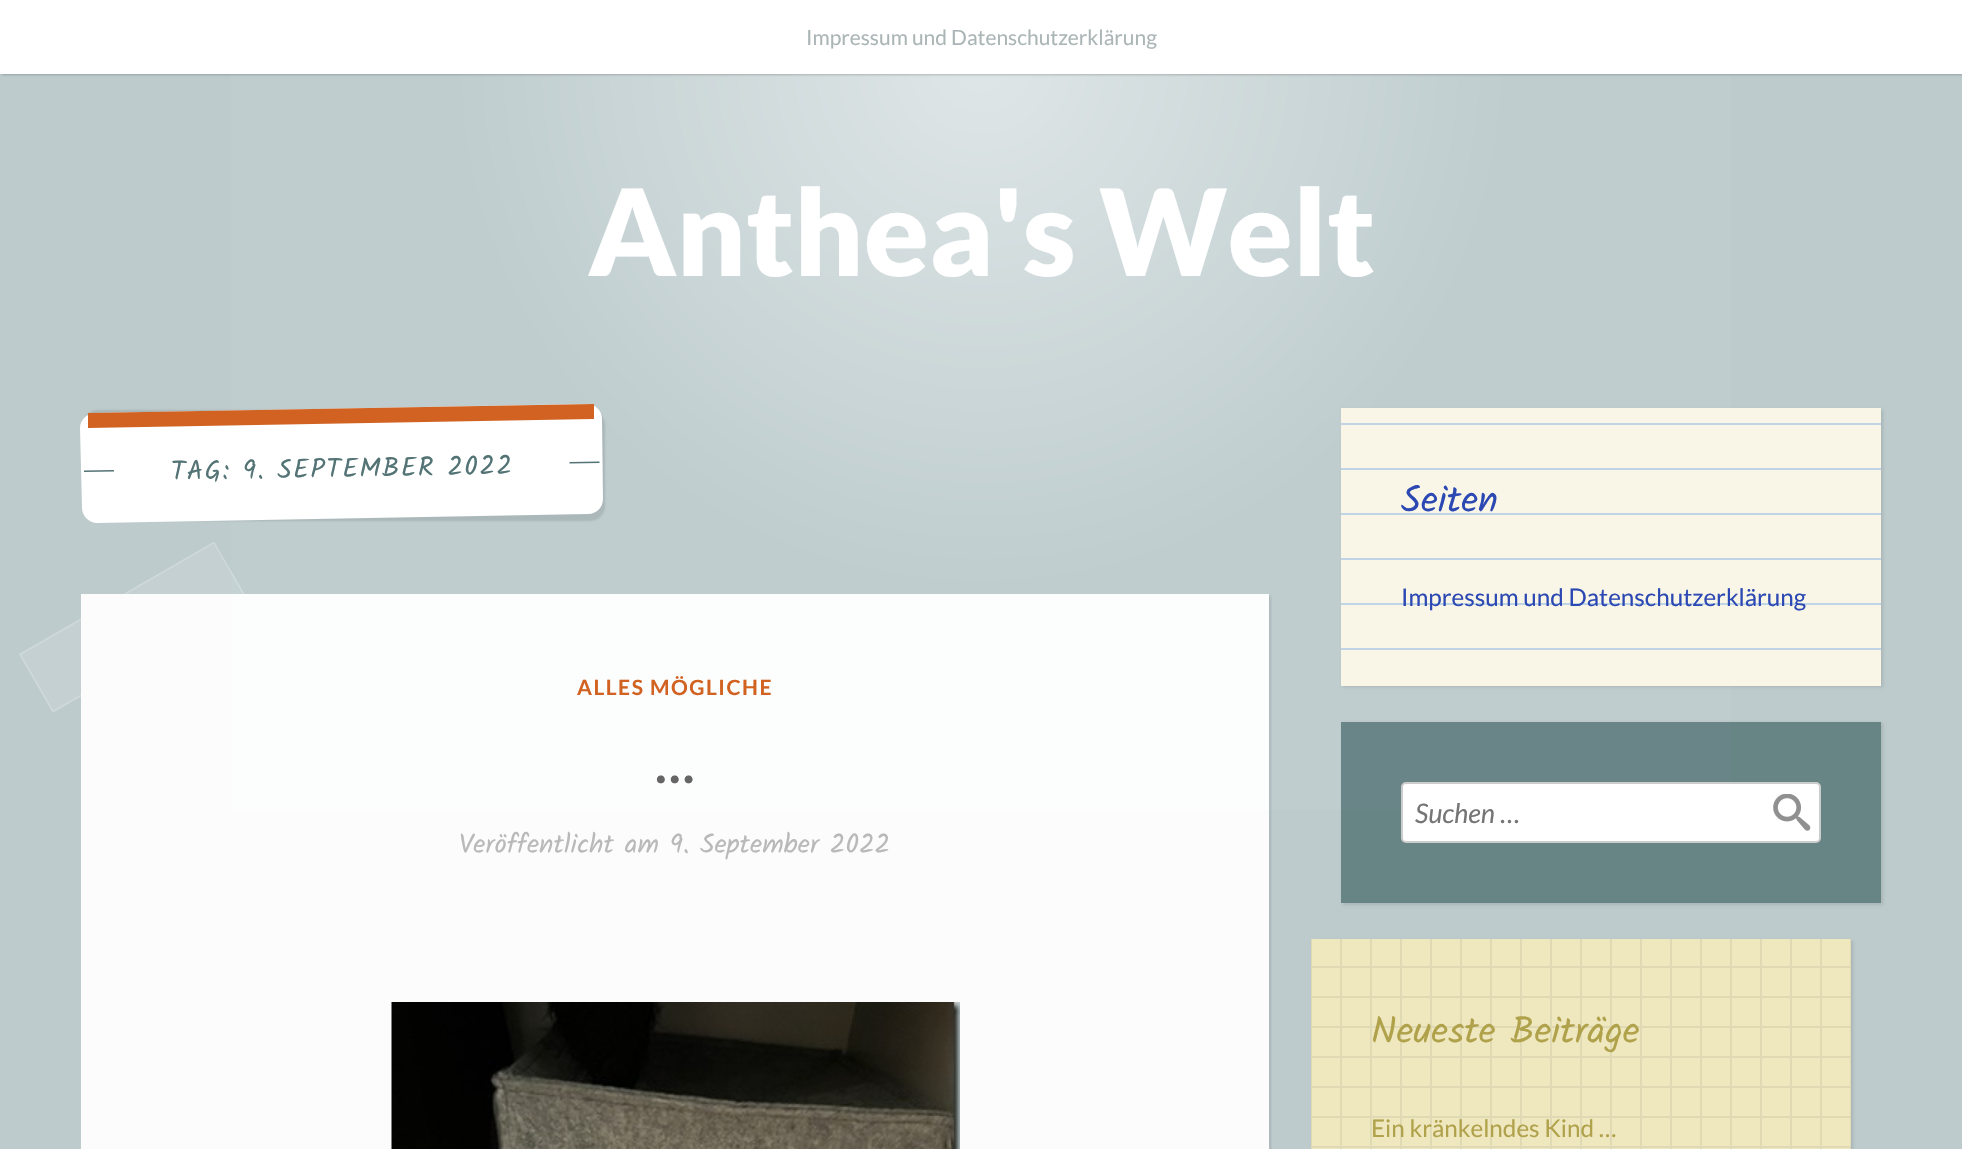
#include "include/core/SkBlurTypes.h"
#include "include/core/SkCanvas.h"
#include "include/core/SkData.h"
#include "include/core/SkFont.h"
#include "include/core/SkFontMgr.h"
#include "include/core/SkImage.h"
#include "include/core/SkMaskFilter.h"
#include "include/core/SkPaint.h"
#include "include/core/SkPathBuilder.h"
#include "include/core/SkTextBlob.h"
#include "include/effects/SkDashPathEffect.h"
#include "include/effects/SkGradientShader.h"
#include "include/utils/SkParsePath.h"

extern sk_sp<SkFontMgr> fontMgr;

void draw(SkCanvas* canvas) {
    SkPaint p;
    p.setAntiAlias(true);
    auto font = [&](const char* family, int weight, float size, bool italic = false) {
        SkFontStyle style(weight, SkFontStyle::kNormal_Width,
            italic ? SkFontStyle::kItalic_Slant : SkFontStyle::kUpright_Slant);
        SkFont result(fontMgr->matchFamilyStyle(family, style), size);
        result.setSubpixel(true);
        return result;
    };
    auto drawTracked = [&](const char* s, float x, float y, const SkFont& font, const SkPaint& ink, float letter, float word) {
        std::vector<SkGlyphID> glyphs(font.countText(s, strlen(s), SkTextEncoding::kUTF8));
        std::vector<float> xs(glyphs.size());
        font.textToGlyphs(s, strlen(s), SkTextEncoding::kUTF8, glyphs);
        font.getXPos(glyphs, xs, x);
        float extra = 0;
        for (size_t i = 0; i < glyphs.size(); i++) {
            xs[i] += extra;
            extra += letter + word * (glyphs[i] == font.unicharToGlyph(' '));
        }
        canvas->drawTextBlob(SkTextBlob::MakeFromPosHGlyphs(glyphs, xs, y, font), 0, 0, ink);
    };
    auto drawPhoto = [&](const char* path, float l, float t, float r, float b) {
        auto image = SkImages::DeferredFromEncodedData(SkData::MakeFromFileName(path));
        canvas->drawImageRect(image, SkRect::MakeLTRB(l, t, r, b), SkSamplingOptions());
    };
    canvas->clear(0xFFBDCBCC);
    p.setColor(0xFFFCFCFC);
    canvas->drawRect(SkRect::MakeLTRB(81, 594, 1269, 1149), p);
    p.setColor(0xFF688586);
    canvas->drawRect(SkRect::MakeLTRB(1341, 722, 1881, 903), p);
    {
        const SkColor colors[] = {0xFFDFE6E7, 0xFFBFCDCF, 0xFFBFCDCF};
        const float stops[] = {0, 0.5f, 1};
        p.setShader(SkGradientShader::MakeRadial({981, 60}, 1061, colors, stops, 3, SkTileMode::kClamp));
        p.setAlpha(255);
    }
    canvas->drawRect(SkRect::MakeLTRB(231, 74, 1731, 810), p);
    p.setShader(nullptr);
    p.setColor(0x33000000);
    p.setMaskFilter(SkMaskFilter::MakeBlur(kNormal_SkBlurStyle, 1));
    canvas->drawRect(SkRect::MakeLTRB(2, 2, 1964, 75), p);
    p.setMaskFilter(nullptr);
    p.setColor(0xFFFFFFFF);
    canvas->drawRect(SkRect::MakeLTRB(0, 0, 1962, 74), p);
    auto font1 = font("Lato", 400, 21);
    p.setColor(0xFFABB5B6);
    canvas->drawString("Impressum und Datenschutzerklärung", 806, 45, font1, p);
    auto font2 = font("Lato", 900, 120);
    p.setColor(0xFFFFFFFF);
    canvas->drawString("Anthea's Welt", 588, 276, font2, p);
    {
        const SkColor colors[] = {0xFFFDFEFE, 0xFFFCFDFD, 0xFFFCFDFD};
        const float stops[] = {0, 0.5f, 1};
        p.setShader(SkGradientShader::MakeRadial({981, 60}, 1061, colors, stops, 3, SkTileMode::kClamp));
        p.setAlpha(255);
    }
    canvas->drawRect(SkRect::MakeLTRB(231, 594, 1269, 810), p);
    {
        const SkColor colors[] = {0xFF6F8A8C, 0xFF698587, 0xFF698587};
        const float stops[] = {0, 0.5f, 1};
        p.setShader(SkGradientShader::MakeRadial({981, 60}, 1061, colors, stops, 3, SkTileMode::kClamp));
        p.setAlpha(255);
    }
    canvas->drawRect(SkRect::MakeLTRB(1341, 722, 1731, 810), p);
    p.setShader(nullptr);
    p.setColor(0x1A000000);
    p.setMaskFilter(SkMaskFilter::MakeBlur(kNormal_SkBlurStyle, 1));
    canvas->drawRoundRect(SkRect::MakeLTRB(83, 410, 605, 521), 15, 15, p);
    p.setMaskFilter(nullptr);
    p.setColor(0xFFFFFFFF);
    canvas->drawPath(SkPathBuilder().moveTo(95, 413).lineTo(586, 404).cubicTo(595, 404, 602, 410, 602, 419).lineTo(603, 499).cubicTo(603, 507, 597, 514, 588, 514).lineTo(97, 523).cubicTo(89, 523, 82, 516, 82, 508).lineTo(80, 428).cubicTo(80, 420, 87, 413, 95, 413).close().detach(), p);
    p.setColor(0xFFD16221);
    canvas->drawPath(SkPathBuilder().moveTo(88, 413).lineTo(594, 404).lineTo(594, 419).lineTo(88, 428).close().detach(), p);
    auto font3 = font("Kalam", 400, 27);
    p.setColor(0xFF537375);
    canvas->save();
    canvas->rotate(-1, 171, 480);
    drawTracked("TAG:", 171, 480, font3, p, 1.4f, 0);
    canvas->restore();
    canvas->save();
    canvas->rotate(-1, 243, 479);
    drawTracked("9. SEPTEMBER 2022", 243, 479, font3, p, 1.4f, 0);
    canvas->restore();
    canvas->drawPath(SkPathBuilder().moveTo(569.5f, 462).lineTo(599.5f, 461.5f).lineTo(599.5f, 463).lineTo(569.5f, 463.5f).close().detach(), p);
    canvas->drawPath(SkPathBuilder().moveTo(84, 470.5f).lineTo(114, 470).lineTo(114, 471.5f).lineTo(84, 472).close().detach(), p);
    canvas->save();
    canvas->clipRect(SkRect::MakeLTRB(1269, 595, 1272, 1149));
    p.setColor(0x1A000000);
    p.setMaskFilter(SkMaskFilter::MakeBlur(kNormal_SkBlurStyle, 1.5f));
    canvas->drawRect(SkRect::MakeLTRB(83, 596, 1271, 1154), p);
    p.setMaskFilter(nullptr);
    canvas->restore();
    p.setColor(0x1AFFFFFF);
    canvas->drawPath(SkPathBuilder().moveTo(19, 654).lineTo(214, 542).lineTo(248, 600).lineTo(53, 713).close().detach(), p);
    p.setStyle(SkPaint::kStroke_Style);
    p.setStrokeWidth(1.5f);
    p.setColor(0x33FFFFFF);
    canvas->drawPath(SkPathBuilder().moveTo(20, 654.5f).lineTo(214, 542.5f).lineTo(247, 600).lineTo(53, 711.5f).close().detach(), p);
    auto font4 = font("Lato", 700, 21);
    p.setStyle(SkPaint::kFill_Style);
    p.setColor(0xFFD16221);
    drawTracked("ALLES MÖGLICHE", 577, 695, font4, p, 1.5f, 0);
    auto font5 = font("Lato", 700, 52);
    p.setColor(0xFF666666);
    canvas->drawString("…", 655, 783, font5, p);
    p.setColor(0xFFB9B9B9);
    canvas->drawString("Veröffentlicht am 9. September 2022", 459, 853, font3, p);
    drawPhoto("media/1.png", 391, 1002, 960, 1149);
    p.setColor(0x1A000000);
    p.setMaskFilter(SkMaskFilter::MakeBlur(kNormal_SkBlurStyle, 1.5f));
    canvas->drawRect(SkRect::MakeLTRB(1343, 410, 1883, 687), p);
    p.setMaskFilter(nullptr);
    {
        const struct { float l, t, r, b; SkColor color; } items[] = {
            {1341, 408, 1881, 686, 0xFFF9F6E7},
            {1341, 423, 1881, 425, 0xFFBFD4E4},
            {1341, 468, 1881, 470, 0xFFBFD4E4},
            {1341, 513, 1881, 515, 0xFFBFD4E4},
            {1341, 558, 1881, 560, 0xFFBFD4E4},
            {1341, 603, 1881, 605, 0xFFBFD4E4},
            {1341, 648, 1881, 650, 0xFFBFD4E4},
        };
        for (auto [l, t, r, b, color] : items) {
            p.setColor(color);
            canvas->drawRect(SkRect::MakeLTRB(l, t, r, b), p);
        }
    }
    auto font6 = font("Kalam", 400, 37.5f);
    p.setColor(0xFF2C48B3);
    canvas->drawString("Seiten", 1401, 512, font6, p);
    auto font7 = font("Lato", 400, 24.25f);
    canvas->drawString("Impressum und Datenschutzerklärung", 1401, 606, font7, p);
    canvas->save();
    canvas->clipPath(SkPathBuilder(SkPathFillType::kEvenOdd).moveTo(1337, 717).lineTo(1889, 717).lineTo(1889, 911).lineTo(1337, 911).close().moveTo(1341, 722).lineTo(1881, 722).lineTo(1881, 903).lineTo(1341, 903).close().detach(), true);
    p.setColor(0x1A000000);
    p.setMaskFilter(SkMaskFilter::MakeBlur(kNormal_SkBlurStyle, 1.5f));
    canvas->drawRect(SkRect::MakeLTRB(1343, 723, 1883, 905), p);
    p.setMaskFilter(nullptr);
    canvas->restore();
    p.setColor(0xFFFFFFFF);
    canvas->drawRoundRect(SkRect::MakeLTRB(1402, 783, 1820, 842), 4, 4, p);
    p.setStyle(SkPaint::kStroke_Style);
    p.setStrokeWidth(2);
    p.setColor(0xFFCCCCCC);
    canvas->drawRoundRect(SkRect::MakeLTRB(1402, 783, 1820, 842), 4, 4, p);
    auto font8 = font("Lato", 400, 27, true);
    p.setStyle(SkPaint::kFill_Style);
    p.setColor(0xFF757575);
    canvas->drawString("Suchen …", 1415, 823, font8, p);
    drawPhoto("media/2.png", 1773, 794, 1811, 831);
    p.setColor(0x1A000000);
    p.setMaskFilter(SkMaskFilter::MakeBlur(kNormal_SkBlurStyle, 1.5f));
    canvas->drawRect(SkRect::MakeLTRB(1313, 941, 1853, 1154), p);
    p.setMaskFilter(nullptr);
    {
        const struct { float l, t, r, b; SkColor color; } items[] = {
            {1312, 939, 1850, 1149, 0xFFEFE8BE},
            {1311, 966, 1851, 968, 0xFFDFD9B4},
            {1311, 996, 1851, 998, 0xFFDFD9B4},
            {1311, 1026, 1851, 1028, 0xFFDFD9B4},
            {1311, 1056, 1851, 1058, 0xFFDFD9B4},
            {1311, 1086, 1851, 1088, 0xFFDFD9B4},
            {1311, 1116, 1851, 1118, 0xFFDFD9B4},
            {1311, 1146, 1851, 1148, 0xFFDFD9B4},
            {1311, 939, 1312, 1149, 0xFFDFD9B4},
            {1340, 939, 1342, 1149, 0xFFDFD9B4},
            {1370, 939, 1372, 1149, 0xFFDFD9B4},
            {1400, 939, 1402, 1149, 0xFFDFD9B4},
            {1430, 939, 1432, 1149, 0xFFDFD9B4},
            {1460, 939, 1462, 1149, 0xFFDFD9B4},
            {1490, 939, 1492, 1149, 0xFFDFD9B4},
            {1520, 939, 1522, 1149, 0xFFDFD9B4},
            {1550, 939, 1552, 1149, 0xFFDFD9B4},
            {1580, 939, 1582, 1149, 0xFFDFD9B4},
            {1610, 939, 1612, 1149, 0xFFDFD9B4},
            {1640, 939, 1642, 1149, 0xFFDFD9B4},
            {1670, 939, 1672, 1149, 0xFFDFD9B4},
            {1700, 939, 1702, 1149, 0xFFDFD9B4},
            {1730, 939, 1732, 1149, 0xFFDFD9B4},
            {1760, 939, 1762, 1149, 0xFFDFD9B4},
            {1790, 939, 1792, 1149, 0xFFDFD9B4},
            {1820, 939, 1822, 1149, 0xFFDFD9B4},
            {1850, 939, 1851, 1149, 0xFFDFD9B4},
        };
        for (auto [l, t, r, b, color] : items) {
            p.setColor(color);
            canvas->drawRect(SkRect::MakeLTRB(l, t, r, b), p);
        }
    }
    p.setColor(0xFFB0A14B);
    canvas->drawString("Neueste Beiträge", 1371, 1043, font6, p);
    canvas->drawString("Ein kränkelndes Kind …", 1371, 1137, font7, p);
}
